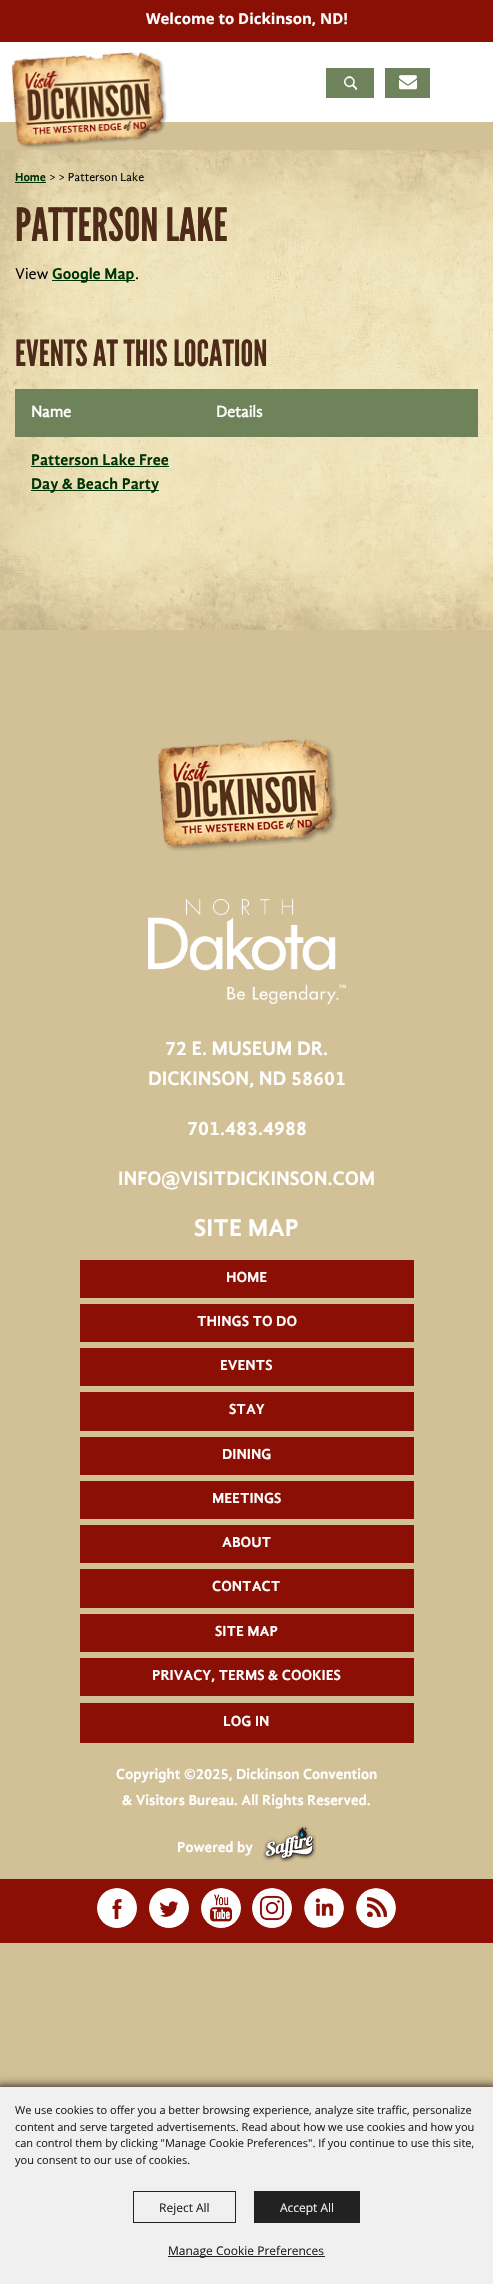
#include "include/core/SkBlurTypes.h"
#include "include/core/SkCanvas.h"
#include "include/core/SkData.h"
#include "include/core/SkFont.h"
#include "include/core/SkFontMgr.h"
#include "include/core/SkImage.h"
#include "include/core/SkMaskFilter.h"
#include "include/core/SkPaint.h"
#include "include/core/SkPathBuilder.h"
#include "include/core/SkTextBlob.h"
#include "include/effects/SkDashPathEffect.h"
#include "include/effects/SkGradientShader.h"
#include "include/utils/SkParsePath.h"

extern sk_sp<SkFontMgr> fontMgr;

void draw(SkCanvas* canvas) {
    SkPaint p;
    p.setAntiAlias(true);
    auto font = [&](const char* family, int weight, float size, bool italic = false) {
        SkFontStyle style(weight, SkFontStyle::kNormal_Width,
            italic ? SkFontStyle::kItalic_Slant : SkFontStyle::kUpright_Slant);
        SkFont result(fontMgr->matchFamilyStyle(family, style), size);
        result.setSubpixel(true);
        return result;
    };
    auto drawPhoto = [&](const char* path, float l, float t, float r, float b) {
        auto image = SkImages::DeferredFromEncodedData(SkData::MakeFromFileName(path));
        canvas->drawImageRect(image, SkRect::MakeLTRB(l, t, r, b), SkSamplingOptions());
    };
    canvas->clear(0xFFD2C096);
    p.setColor(0xFF8A0F05);
    canvas->drawRect(SkRect::MakeLTRB(0, 0, 493, 42), p);
    auto font1 = font("Open Sans", 700, 15);
    p.setColor(0xFFFFFFFF);
    canvas->drawString("Welcome to Dickinson, ND!", 146, 24, font1, p);
    canvas->drawRect(SkRect::MakeLTRB(0, 42, 493, 122), p);
    drawPhoto("media/1.png", 11, 52, 167, 148);
    p.setColor(0xFF6E835B);
    canvas->drawRect(SkRect::MakeLTRB(326, 68, 374, 98), p);
    drawPhoto("media/2.png", 344, 76, 357, 90);
    canvas->drawRect(SkRect::MakeLTRB(385, 68, 430, 98), p);
    drawPhoto("media/3.png", 399, 75, 417, 90);
    drawPhoto("media/4.png", 0, 150, 493, 630);
    auto font2 = font("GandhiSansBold", 700, 12);
    p.setColor(0xFF003405);
    canvas->drawString("Home", 15, 181, font2, p);
    canvas->drawRect(SkRect::MakeLTRB(15, 182, 46, 183), p);
    auto font3 = font("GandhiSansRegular", 400, 12);
    p.setColor(0xFF000000);
    canvas->drawString("> > Patterson Lake", 49, 181, font3, p);
    auto font4 = font("League Gothic", 400, 46);
    p.setColor(0xFF4D2B18);
    canvas->drawString("PATTERSON LAKE", 15, 241, font4, p);
    auto font5 = font("GandhiSansRegular", 400, 16);
    p.setColor(0xFF000000);
    canvas->drawString("View", 15, 279, font5, p);
    p.setColor(0xFF003405);
    canvas->drawRect(SkRect::MakeLTRB(52, 280, 135, 281), p);
    auto font6 = font("GandhiSansBold", 700, 16);
    canvas->drawString("Google Map", 52, 279, font6, p);
    p.setColor(0xFF000000);
    canvas->drawString(".", 135, 279, font5, p);
    auto font7 = font("League Gothic", 400, 36);
    p.setColor(0xFF4D2B18);
    canvas->drawString("EVENTS AT THIS LOCATION", 15, 366, font7, p);
    p.setColor(0xFF6F835B);
    canvas->drawRect(SkRect::MakeLTRB(15, 389, 478, 437), p);
    auto font8 = font("GandhiSansRegular", 700, 16);
    p.setColor(0xFFFFFFFF);
    canvas->drawString("Name", 31, 417, font8, p);
    canvas->drawString("Details", 216, 417, font8, p);
    p.setColor(0xFF003405);
    canvas->drawString("Patterson Lake Free", 31, 465, font6, p);
    canvas->drawRect(SkRect::MakeLTRB(31, 466, 169, 467), p);
    canvas->drawRect(SkRect::MakeLTRB(31, 490, 159, 491), p);
    canvas->drawString("Day & Beach Party", 31, 489, font6, p);
    drawPhoto("media/5.png", 158, 738, 338, 851);
    drawPhoto("media/6.png", 148, 899, 346, 1004);
    auto font9 = font("GandhiSansBold", 700, 20);
    p.setColor(0xFFFFFFFF);
    {
        const struct { const char* s; float x, y; } items[] = {
            {"72 E. MUSEUM DR.", 165, 1055},
            {"DICKINSON, ND 58601", 148, 1085},
            {"701.483.4988", 187, 1135},
            {"INFO@VISITDICKINSON.COM", 118, 1185},
        };
        for (auto [s, x, y] : items) {
            canvas->drawString(s, x, y, font9, p);
        }
    }
    auto font10 = font("GandhiSansBold", 700, 25);
    canvas->drawString("SITE MAP", 194, 1236, font10, p);
    p.setColor(0xFF8C0F05);
    canvas->drawRect(SkRect::MakeLTRB(80, 1260, 414, 1298), p);
    auto font11 = font("GandhiSansBold", 700, 15);
    p.setColor(0xFFFFFFFF);
    canvas->drawString("HOME", 226, 1282, font11, p);
    p.setColor(0xFF8C0F05);
    canvas->drawRect(SkRect::MakeLTRB(80, 1304, 414, 1342), p);
    p.setColor(0xFFFFFFFF);
    canvas->drawString("THINGS TO DO", 197, 1326, font11, p);
    p.setColor(0xFF8C0F05);
    canvas->drawRect(SkRect::MakeLTRB(80, 1348, 414, 1386), p);
    p.setColor(0xFFFFFFFF);
    canvas->drawString("EVENTS", 220, 1370, font11, p);
    p.setColor(0xFF8C0F05);
    canvas->drawRect(SkRect::MakeLTRB(80, 1392, 414, 1431), p);
    p.setColor(0xFFFFFFFF);
    canvas->drawString("STAY", 229, 1414, font11, p);
    p.setColor(0xFF8C0F05);
    canvas->drawRect(SkRect::MakeLTRB(80, 1437, 414, 1475), p);
    p.setColor(0xFFFFFFFF);
    canvas->drawString("DINING", 222, 1459, font11, p);
    p.setColor(0xFF8C0F05);
    canvas->drawRect(SkRect::MakeLTRB(80, 1481, 414, 1519), p);
    p.setColor(0xFFFFFFFF);
    canvas->drawString("MEETINGS", 212, 1503, font11, p);
    p.setColor(0xFF8C0F05);
    canvas->drawRect(SkRect::MakeLTRB(80, 1525, 414, 1563), p);
    p.setColor(0xFFFFFFFF);
    canvas->drawString("ABOUT", 222, 1547, font11, p);
    p.setColor(0xFF8C0F05);
    canvas->drawRect(SkRect::MakeLTRB(80, 1569, 414, 1608), p);
    p.setColor(0xFFFFFFFF);
    canvas->drawString("CONTACT", 212, 1591, font11, p);
    p.setColor(0xFF8C0F05);
    canvas->drawRect(SkRect::MakeLTRB(80, 1614, 414, 1652), p);
    p.setColor(0xFFFFFFFF);
    canvas->drawString("SITE MAP", 215, 1636, font11, p);
    p.setColor(0xFF8C0F05);
    canvas->drawRect(SkRect::MakeLTRB(80, 1658, 414, 1696), p);
    p.setColor(0xFFFFFFFF);
    canvas->drawString("PRIVACY, TERMS & COOKIES", 152, 1680, font11, p);
    p.setColor(0xFF8C0F05);
    canvas->drawRect(SkRect::MakeLTRB(80, 1703, 414, 1743), p);
    p.setColor(0xFFFFFFFF);
    {
        const struct { const char* s; float x, y; } items[] = {
            {"LOG IN", 223, 1726},
            {"Copyright ©2025, Dickinson Convention", 116, 1779},
            {"& Visitors Bureau. All Rights Reserved.", 122, 1805},
            {"Powered by", 177, 1852},
        };
        for (auto [s, x, y] : items) {
            canvas->drawString(s, x, y, font11, p);
        }
    }
    drawPhoto("media/7.png", 263, 1825, 316, 1862);
    p.setColor(0xFF8C0F05);
    canvas->drawRect(SkRect::MakeLTRB(0, 1879, 493, 1943), p);
    drawPhoto("media/8.png", 97, 1888, 137, 1928);
    drawPhoto("media/9.png", 149, 1888, 189, 1928);
    drawPhoto("media/10.png", 201, 1888, 241, 1928);
    drawPhoto("media/11.png", 252, 1888, 292, 1928);
    drawPhoto("media/12.png", 304, 1888, 344, 1928);
    drawPhoto("media/13.png", 356, 1888, 396, 1928);
    p.setColor(0xFF000000);
    p.setMaskFilter(SkMaskFilter::MakeBlur(kNormal_SkBlurStyle, 5));
    canvas->drawRect(SkRect::MakeLTRB(-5, 2087, 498, 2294), p);
    p.setMaskFilter(nullptr);
    p.setColor(0xFFF0F0F0);
    canvas->drawRect(SkRect::MakeLTRB(0, 2087, 493, 2284), p);
    auto font12 = font("Open Sans", 400, 11);
    p.setColor(0xFF222222);
    {
        const struct { const char* s; float x, y; } items[] = {
            {"We use cookies to offer you a better browsing experience, analyze site traffic, personalize", 15, 2114},
            {"content and serve targeted advertisements. Read about how we use cookies and how you", 15, 2131},
            {"can control them by clicking \"Manage Cookie Preferences\". If you continue to use this site,", 15, 2147},
            {"you consent to our use of cookies.", 15, 2164},
        };
        for (auto [s, x, y] : items) {
            canvas->drawString(s, x, y, font12, p);
        }
    }
    p.setStyle(SkPaint::kStroke_Style);
    p.setStrokeWidth(1);
    canvas->drawRect(SkRect::MakeLTRB(133.5f, 2191.5f, 235.5f, 2222.5f), p);
    auto font13 = font("Open Sans", 400, 12);
    p.setStyle(SkPaint::kFill_Style);
    canvas->drawString("Reject All", 159, 2212, font13, p);
    canvas->drawRect(SkRect::MakeLTRB(254, 2191, 360, 2223), p);
    p.setColor(0xFFF0F0F0);
    canvas->drawString("Accept All", 280, 2212, font13, p);
    p.setColor(0xFF222222);
    canvas->drawRect(SkRect::MakeLTRB(168, 2256, 325, 2257), p);
    canvas->drawString("Manage Cookie Preferences", 168, 2255, font13, p);
}
